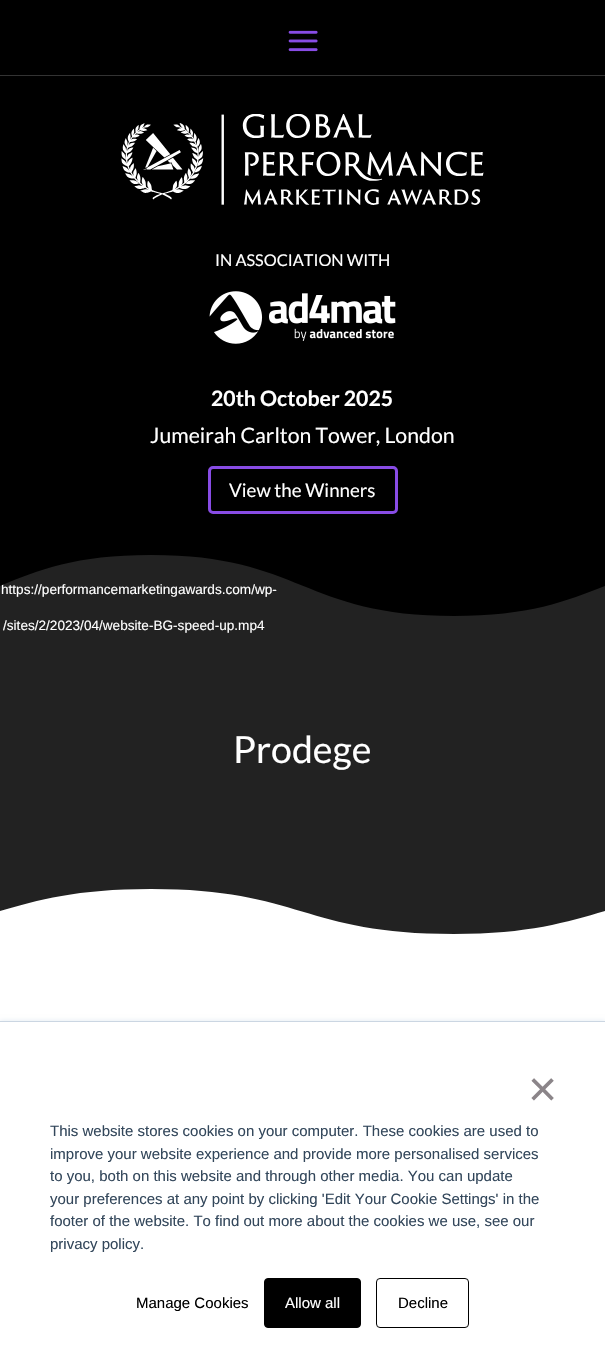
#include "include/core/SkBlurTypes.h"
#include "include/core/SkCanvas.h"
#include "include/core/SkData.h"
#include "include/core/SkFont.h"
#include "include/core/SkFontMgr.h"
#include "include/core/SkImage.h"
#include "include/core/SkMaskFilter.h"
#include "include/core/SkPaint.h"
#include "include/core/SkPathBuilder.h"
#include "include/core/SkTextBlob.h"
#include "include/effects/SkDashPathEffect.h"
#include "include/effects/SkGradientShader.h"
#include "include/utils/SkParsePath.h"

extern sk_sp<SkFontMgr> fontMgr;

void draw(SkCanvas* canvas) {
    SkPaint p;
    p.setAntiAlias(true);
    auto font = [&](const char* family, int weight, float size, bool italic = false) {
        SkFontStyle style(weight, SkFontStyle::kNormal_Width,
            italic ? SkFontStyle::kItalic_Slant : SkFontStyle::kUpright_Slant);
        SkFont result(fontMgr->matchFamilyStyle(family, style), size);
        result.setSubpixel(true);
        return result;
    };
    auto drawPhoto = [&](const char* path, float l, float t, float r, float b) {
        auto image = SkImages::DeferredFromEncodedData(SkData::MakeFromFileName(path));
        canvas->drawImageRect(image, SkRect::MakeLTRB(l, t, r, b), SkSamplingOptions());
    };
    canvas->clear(0xFFFFFFFF);
    p.setColor(0xFF000000);
    canvas->drawRect(SkRect::MakeLTRB(0, 0, 605, 75), p);
    p.setColor(0xFF333333);
    canvas->drawRect(SkRect::MakeLTRB(0, 75, 605, 76), p);
    drawPhoto("media/1.png", 288, 30, 318, 52);
    p.setColor(0xFF000000);
    canvas->drawRect(SkRect::MakeLTRB(0, 76, 605, 535), p);
    drawPhoto("media/2.png", 121, 114, 484, 205);
    auto font1 = font("Lato", 400, 16.25f);
    p.setColor(0xFFFFFFFF);
    canvas->drawString("IN ASSOCIATION WITH", 215, 266, font1, p);
    drawPhoto("media/3.png", 209, 291, 396, 344);
    auto font2 = font("Lato", 700, 21.25f);
    canvas->drawString("20th October 2025", 211, 406, font2, p);
    auto font3 = font("Lato", 400, 21.25f);
    canvas->drawString("Jumeirah Carlton Tower, London", 150, 443, font3, p);
    p.setStyle(SkPaint::kStroke_Style);
    p.setStrokeWidth(3);
    p.setColor(0xFF884CE5);
    canvas->drawRoundRect(SkRect::MakeLTRB(209.5f, 467.5f, 396.5f, 512.5f), 3.5f, 3.5f, p);
    auto font4 = font("Lato", 400, 18.75f);
    p.setStyle(SkPaint::kFill_Style);
    p.setColor(0xFFFFFFFF);
    canvas->drawString("View the Winners", 229, 497, font4, p);
    p.setColor(0xFF222222);
    canvas->drawRect(SkRect::MakeLTRB(0, 555, 605, 934), p);
    auto font5 = font("Liberation Sans", 400, 13.6f);
    p.setColor(0xFFFFFFFF);
    canvas->drawString("https://performancemarketingawards.com/wp-", 1, 594, font5, p);
    p.setColor(0xFF000000);
    canvas->drawPath(SkPathBuilder().moveTo(151, 555).cubicTo(76, 555, 38, 570, 0, 586).lineTo(0, 535).lineTo(605, 535).lineTo(605, 586).cubicTo(567, 601, 529, 616, 454, 616).cubicTo(302, 616, 302, 555, 151, 555).close().detach(), p);
    p.setColor(0xFFFFFFFF);
    canvas->drawString("/sites/2/2023/04/website-BG-speed-up.mp4", 3, 630, font5, p);
    auto font6 = font("Lato", 400, 37.5f);
    canvas->drawString("Prodege", 233, 763, font6, p);
    canvas->drawPath(SkPathBuilder().moveTo(151, 889).cubicTo(302, 889, 302, 934, 454, 934).cubicTo(529, 934, 567, 922, 605, 911).lineTo(605, 949).lineTo(0, 949).lineTo(0, 911).cubicTo(38, 900, 76, 889, 151, 889).close().detach(), p);
    p.setColor(0xFFEAF0F6);
    p.setMaskFilter(SkMaskFilter::MakeBlur(kNormal_SkBlurStyle, 2));
    canvas->drawRect(SkRect::MakeLTRB(0, 1020, 605, 1359), p);
    p.setMaskFilter(nullptr);
    p.setColor(0xFFFFFFFF);
    canvas->drawRect(SkRect::MakeLTRB(0, 1022, 605, 1360), p);
    p.setColor(0xFFCBD6E2);
    canvas->drawRect(SkRect::MakeLTRB(0, 1021, 605, 1022), p);
    auto font7 = font("Liberation Sans", 400, 50);
    p.setColor(0xFF8B8589);
    canvas->drawString("×", 528, 1106, font7, p);
    auto font8 = font("Liberation Sans", 400, 15);
    p.setColor(0xFF33475B);
    {
        const struct { const char* s; float x, y; } items[] = {
            {"This website stores cookies on your computer. These cookies are used to", 50, 1136},
            {"improve your website experience and provide more personalised services", 50, 1159},
            {"to you, both on this website and through other media. You can update", 50, 1181},
            {"your preferences at any point by clicking 'Edit Your Cookie Settings' in the", 50, 1204},
            {"footer of the website. To find out more about the cookies we use, see our", 50, 1226},
            {"privacy policy.", 50, 1249},
        };
        for (auto [s, x, y] : items) {
            canvas->drawString(s, x, y, font8, p);
        }
    }
    p.setColor(0xFF000000);
    canvas->drawString("Manage Cookies", 136, 1308, font8, p);
    canvas->drawRoundRect(SkRect::MakeLTRB(264.5f, 1278.5f, 360.5f, 1327.5f), 3.5f, 3.5f, p);
    p.setStyle(SkPaint::kStroke_Style);
    p.setStrokeWidth(1);
    canvas->drawRoundRect(SkRect::MakeLTRB(264.5f, 1278.5f, 360.5f, 1327.5f), 3.5f, 3.5f, p);
    p.setStyle(SkPaint::kFill_Style);
    p.setColor(0xFFFFFFFF);
    canvas->drawString("Allow all", 285, 1308, font8, p);
    p.setStyle(SkPaint::kStroke_Style);
    p.setColor(0xFF000000);
    canvas->drawRoundRect(SkRect::MakeLTRB(376.5f, 1278.5f, 468.5f, 1327.5f), 3.5f, 3.5f, p);
    p.setStyle(SkPaint::kFill_Style);
    canvas->drawString("Decline", 398, 1308, font8, p);
}
